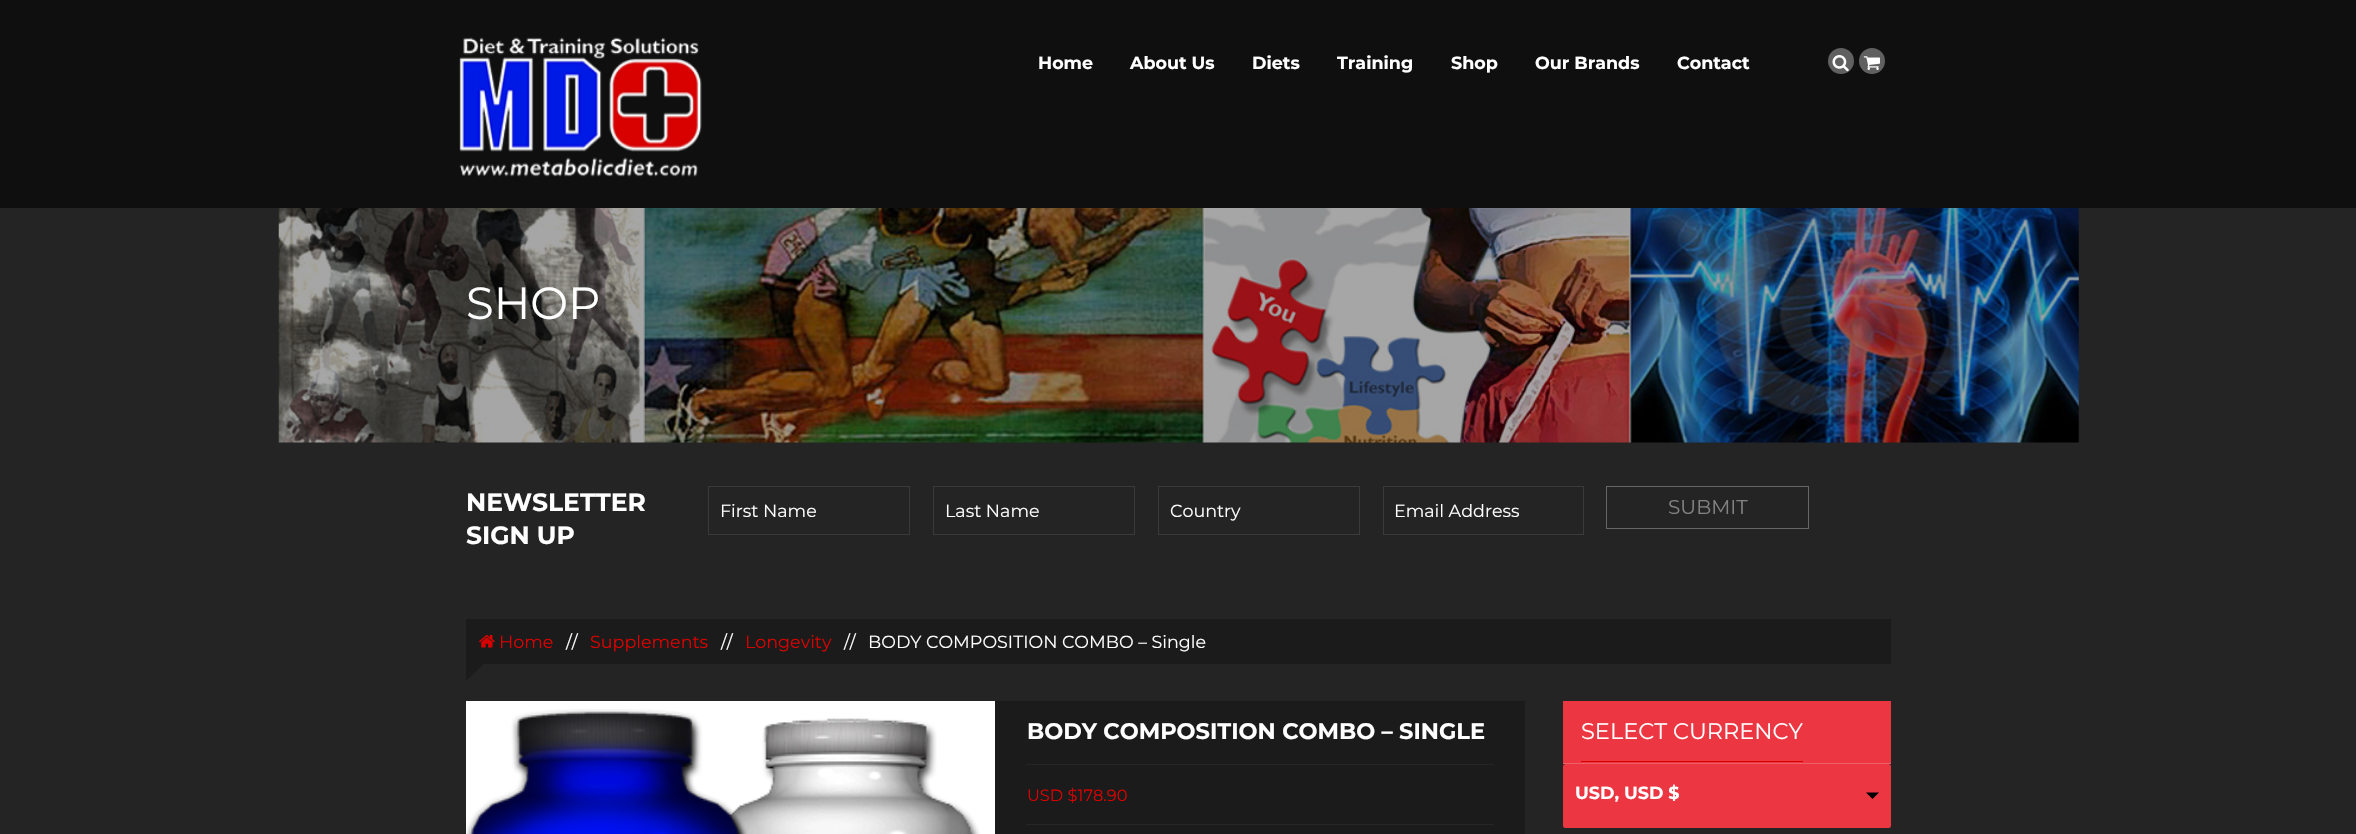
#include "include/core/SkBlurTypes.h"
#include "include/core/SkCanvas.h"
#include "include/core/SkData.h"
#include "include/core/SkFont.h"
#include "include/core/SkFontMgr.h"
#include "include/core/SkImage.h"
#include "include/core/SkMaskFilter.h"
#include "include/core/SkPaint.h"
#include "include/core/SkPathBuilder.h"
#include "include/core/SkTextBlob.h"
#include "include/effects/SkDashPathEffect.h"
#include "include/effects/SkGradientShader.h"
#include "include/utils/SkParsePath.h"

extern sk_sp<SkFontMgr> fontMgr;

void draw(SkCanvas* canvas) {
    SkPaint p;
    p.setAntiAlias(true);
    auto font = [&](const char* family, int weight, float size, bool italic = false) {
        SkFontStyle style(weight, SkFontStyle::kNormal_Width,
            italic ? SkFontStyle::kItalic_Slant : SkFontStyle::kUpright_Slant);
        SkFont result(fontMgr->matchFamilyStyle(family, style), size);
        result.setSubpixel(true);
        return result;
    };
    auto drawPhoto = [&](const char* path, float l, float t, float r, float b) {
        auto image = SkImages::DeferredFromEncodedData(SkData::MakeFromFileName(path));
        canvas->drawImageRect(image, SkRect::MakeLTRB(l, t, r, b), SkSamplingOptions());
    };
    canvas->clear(0xFF242424);
    p.setColor(0xFF0F0F0F);
    canvas->drawRect(SkRect::MakeLTRB(0, 0, 2356, 208), p);
    drawPhoto("media/1.png", 459, 37, 702, 177);
    auto font1 = font("Montserrat", 700, 17.5f);
    p.setColor(0xFFFFFFFF);
    {
        const struct { const char* s; float x, y; } items[] = {
            {"Home", 1038, 69},
            {"About Us", 1130, 69},
            {"Diets", 1252, 69},
            {"Training", 1337, 69},
            {"Shop", 1451, 69},
            {"Our Brands", 1535, 69},
            {"Contact", 1677, 69},
        };
        for (auto [s, x, y] : items) {
            canvas->drawString(s, x, y, font1, p);
        }
    }
    p.setColor(0xFF606060);
    canvas->drawCircle(1841, 61, 13, p);
    drawPhoto("media/2.png", 1832, 55, 1849, 72);
    canvas->drawCircle(1872, 61, 13, p);
    drawPhoto("media/3.png", 1863, 56, 1880, 70);
    drawPhoto("media/4.png", 278, 208, 2079, 443);
    auto font2 = font("Montserrat", 400, 45);
    p.setColor(0xFFFFFFFF);
    canvas->drawString("SHOP", 466, 319, font2, p);
    auto font3 = font("Montserrat", 700, 25);
    canvas->drawString("NEWSLETTER", 466, 511, font3, p);
    canvas->drawString("SIGN UP", 466, 544, font3, p);
    p.setStyle(SkPaint::kStroke_Style);
    p.setStrokeWidth(1);
    p.setColor(0xFF3A3A3A);
    canvas->drawRect(SkRect::MakeLTRB(708.5f, 486.5f, 909.5f, 534.5f), p);
    auto font4 = font("Montserrat", 400, 17.5f);
    p.setStyle(SkPaint::kFill_Style);
    p.setColor(0xFFFFFFFF);
    canvas->drawString("First Name", 720, 517, font4, p);
    p.setStyle(SkPaint::kStroke_Style);
    p.setColor(0xFF3A3A3A);
    canvas->drawRect(SkRect::MakeLTRB(933.5f, 486.5f, 1134.5f, 534.5f), p);
    p.setStyle(SkPaint::kFill_Style);
    p.setColor(0xFFFFFFFF);
    canvas->drawString("Last Name", 945, 517, font4, p);
    p.setStyle(SkPaint::kStroke_Style);
    p.setColor(0xFF3A3A3A);
    canvas->drawRect(SkRect::MakeLTRB(1158.5f, 486.5f, 1359.5f, 534.5f), p);
    p.setStyle(SkPaint::kFill_Style);
    p.setColor(0xFFFFFFFF);
    canvas->drawString("Country", 1170, 517, font4, p);
    p.setStyle(SkPaint::kStroke_Style);
    p.setColor(0xFF3A3A3A);
    canvas->drawRect(SkRect::MakeLTRB(1383.5f, 486.5f, 1583.5f, 534.5f), p);
    p.setStyle(SkPaint::kFill_Style);
    p.setColor(0xFFFFFFFF);
    canvas->drawString("Email Address", 1394, 517, font4, p);
    p.setStyle(SkPaint::kStroke_Style);
    p.setColor(0xFF666666);
    canvas->drawRect(SkRect::MakeLTRB(1606.5f, 486.5f, 1808.5f, 528.5f), p);
    auto font5 = font("Montserrat", 400, 20);
    p.setStyle(SkPaint::kFill_Style);
    p.setColor(0xFF828282);
    canvas->drawString("SUBMIT", 1668, 514, font5, p);
    p.setColor(0xFF1B1B1B);
    canvas->drawRect(SkRect::MakeLTRB(466, 619, 1891, 664), p);
    drawPhoto("media/5.png", 479, 635, 495, 648);
    p.setColor(0xFFD80100);
    canvas->drawString("Home", 499, 648, font4, p);
    p.setColor(0xFFFFFFFF);
    canvas->drawString("//", 566, 648, font4, p);
    p.setColor(0xFFD80100);
    canvas->drawString("Supplements", 590, 648, font4, p);
    p.setColor(0xFFFFFFFF);
    canvas->drawString("//", 721, 648, font4, p);
    p.setColor(0xFFD80100);
    canvas->drawString("Longevity", 745, 648, font4, p);
    p.setColor(0xFFFFFFFF);
    canvas->drawString("//", 844, 648, font4, p);
    canvas->drawString("BODY COMPOSITION COMBO – Single", 868, 648, font4, p);
    p.setColor(0xFF1B1B1B);
    canvas->drawPath(SkPathBuilder().moveTo(466, 681).lineTo(466, 646).lineTo(484, 664).close().detach(), p);
    canvas->drawRect(SkRect::MakeLTRB(995, 701, 1525, 834), p);
    p.setColor(0xFFFFFFFF);
    canvas->drawRect(SkRect::MakeLTRB(466, 701, 995, 834), p);
    drawPhoto("media/6.png", 466, 709, 980, 834);
    p.setColor(0xFF262626);
    canvas->drawRect(SkRect::MakeLTRB(1026, 764, 1494, 765), p);
    auto font6 = font("Montserrat", 700, 22.5f);
    p.setColor(0xFFFFFFFF);
    canvas->drawString("BODY COMPOSITION COMBO – SINGLE", 1027, 739, font6, p);
    p.setColor(0xFF262626);
    canvas->drawRect(SkRect::MakeLTRB(1026, 824, 1494, 825), p);
    auto font7 = font("Montserrat", 400, 16.25f);
    p.setColor(0xFFD80100);
    canvas->drawString("USD $178.90", 1027, 801, font7, p);
    p.setColor(0xFFEC3642);
    canvas->drawRect(SkRect::MakeLTRB(1563, 701, 1891, 763), p);
    p.setColor(0xFFF05E68);
    canvas->drawRect(SkRect::MakeLTRB(1563, 763, 1891, 764), p);
    auto font8 = font("Montserrat", 400, 22.5f);
    p.setColor(0xFFFFFFFF);
    canvas->drawString("SELECT CURRENCY", 1581, 739, font8, p);
    p.setColor(0xFFD80100);
    canvas->drawRect(SkRect::MakeLTRB(1581, 761, 1803, 762), p);
    p.setColor(0xFFEC3642);
    canvas->drawRoundRect(SkRect::MakeLTRB(1563, 764, 1891, 828), 2.5f, 2.5f, p);
    p.setColor(0xFFFFFFFF);
    canvas->drawString("USD, USD $", 1575, 799, font1, p);
    p.setColor(0xFF000000);
    canvas->drawPath(SkPathBuilder().moveTo(1866, 792.5f).lineTo(1879, 792.5f).lineTo(1872.5f, 799).close().detach(), p);
}
